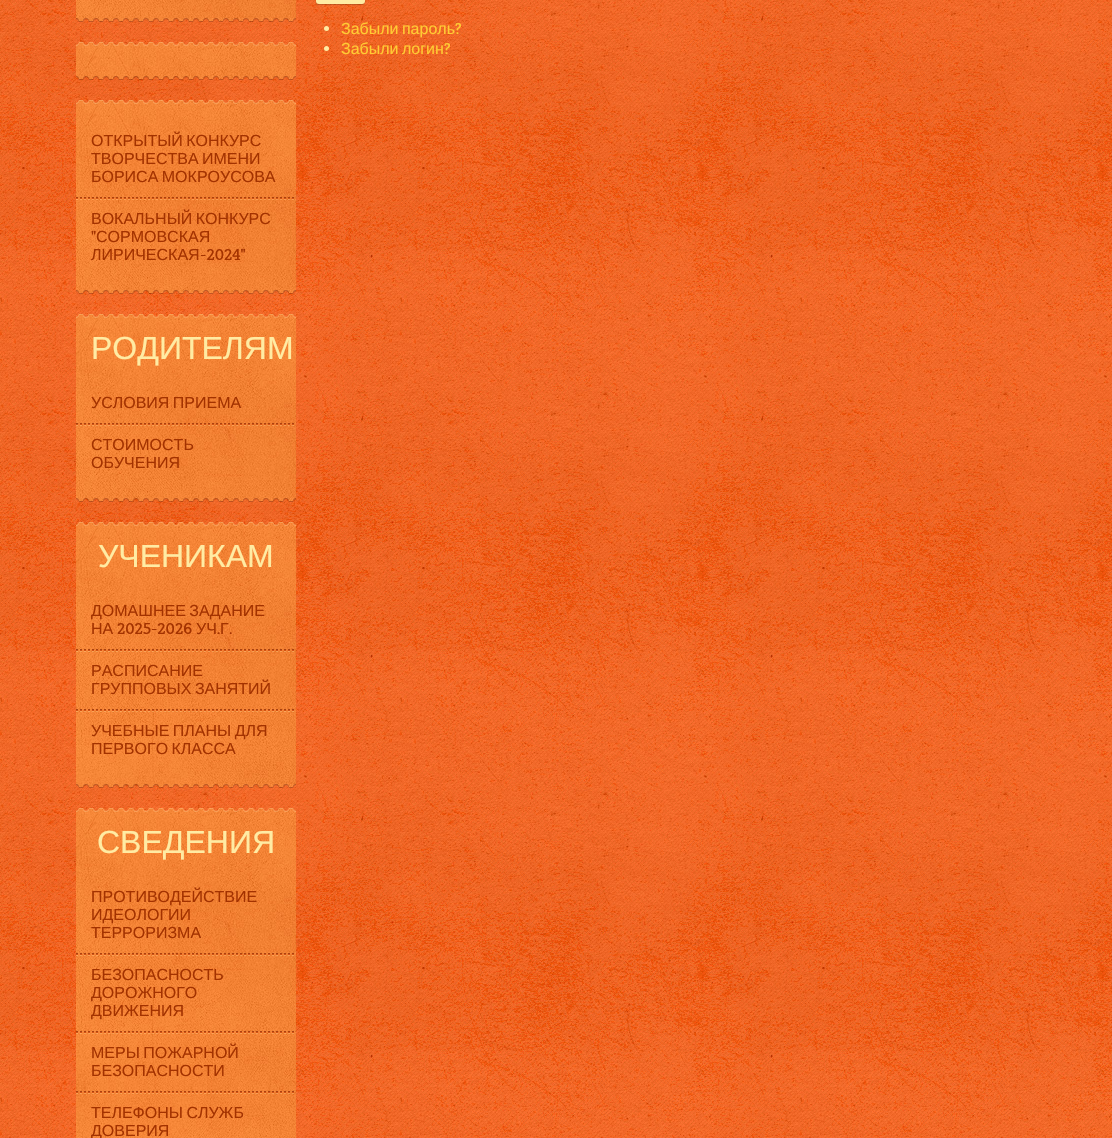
#include "include/core/SkBlurTypes.h"
#include "include/core/SkCanvas.h"
#include "include/core/SkData.h"
#include "include/core/SkFont.h"
#include "include/core/SkFontMgr.h"
#include "include/core/SkImage.h"
#include "include/core/SkMaskFilter.h"
#include "include/core/SkPaint.h"
#include "include/core/SkPathBuilder.h"
#include "include/core/SkTextBlob.h"
#include "include/effects/SkDashPathEffect.h"
#include "include/effects/SkGradientShader.h"
#include "include/utils/SkParsePath.h"

extern sk_sp<SkFontMgr> fontMgr;

void draw(SkCanvas* canvas) {
    SkPaint p;
    p.setAntiAlias(true);
    auto font = [&](const char* family, int weight, float size, bool italic = false) {
        SkFontStyle style(weight, SkFontStyle::kNormal_Width,
            italic ? SkFontStyle::kItalic_Slant : SkFontStyle::kUpright_Slant);
        SkFont result(fontMgr->matchFamilyStyle(family, style), size);
        result.setSubpixel(true);
        return result;
    };
    auto drawTracked = [&](const char* s, float x, float y, const SkFont& font, const SkPaint& ink, float letter, float word) {
        std::vector<SkGlyphID> glyphs(font.countText(s, strlen(s), SkTextEncoding::kUTF8));
        std::vector<float> xs(glyphs.size());
        font.textToGlyphs(s, strlen(s), SkTextEncoding::kUTF8, glyphs);
        font.getXPos(glyphs, xs, x);
        float extra = 0;
        for (size_t i = 0; i < glyphs.size(); i++) {
            xs[i] += extra;
            extra += letter + word * (glyphs[i] == font.unicharToGlyph(' '));
        }
        canvas->drawTextBlob(SkTextBlob::MakeFromPosHGlyphs(glyphs, xs, y, font), 0, 0, ink);
    };
    auto drawPhoto = [&](const char* path, float l, float t, float r, float b) {
        auto image = SkImages::DeferredFromEncodedData(SkData::MakeFromFileName(path));
        canvas->drawImageRect(image, SkRect::MakeLTRB(l, t, r, b), SkSamplingOptions());
    };
    canvas->clear(0xFFFFFFFF);
    drawPhoto("media/1.png", 0, 0, 1112, 1138);
    p.setColor(0x33000000);
    p.setMaskFilter(SkMaskFilter::MakeBlur(kNormal_SkBlurStyle, 0.5f));
    canvas->drawRoundRect(SkRect::MakeLTRB(316, -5, 365, 5), 3, 3, p);
    p.setMaskFilter(nullptr);
    p.setColor(0xFFFFEBA3);
    canvas->drawRoundRect(SkRect::MakeLTRB(316, -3, 365, 4), 3, 3, p);
    canvas->drawCircle(326.5f, 28.5f, 2.5f, p);
    auto font1 = font("Liberation Sans", 400, 16);
    p.setColor(0xFFFFCC33);
    drawTracked("Забыли пароль", 341, 34, font1, p, 0, -1);
    auto font2 = font("Kreon", 400, 16);
    canvas->drawString("?", 455, 34, font2, p);
    p.setColor(0xFFFFEBA3);
    canvas->drawCircle(326.5f, 48.5f, 2.5f, p);
    p.setColor(0xFFFFCC33);
    drawTracked("Забыли логин", 341, 54, font1, p, 0, -1);
    canvas->drawString("?", 444, 54, font2, p);
    drawPhoto("media/2.png", 76, 18, 296, 22);
    drawPhoto("media/3.png", 76, 0, 296, 18);
    drawPhoto("media/4.png", 76, 42, 296, 46);
    drawPhoto("media/5.png", 76, 76, 296, 80);
    drawPhoto("media/6.png", 76, 46, 296, 76);
    drawPhoto("media/7.png", 76, 100, 296, 104);
    drawPhoto("media/8.png", 76, 290, 296, 294);
    drawPhoto("media/9.png", 76, 104, 296, 290);
    p.setColor(0xFFA33200);
    {
        const struct { const char* s; float x, y; } items[] = {
            {"ОТКРЫТЫЙ КОНКУРС", 91, 146},
            {"ТВОРЧЕСТВА ИМЕНИ", 91, 164},
            {"БОРИСА МОКРОУСОВА", 91, 182},
        };
        for (auto [s, x, y] : items) {
            drawTracked(s, x, y, font1, p, 0, -1);
        }
    }
    drawPhoto("media/10.png", 76, 197, 294, 200);
    drawTracked("ВОКАЛЬНЫЙ КОНКУРС", 91, 224, font1, p, 0, -1);
    canvas->drawString("\"", 91, 242, font2, p);
    canvas->drawString("СОРМОВСКАЯ", 96, 242, font1, p);
    canvas->drawString("ЛИРИЧЕСКАЯ", 91, 260, font1, p);
    canvas->drawString("-2024\"", 200, 260, font2, p);
    drawPhoto("media/11.png", 76, 314, 296, 318);
    drawPhoto("media/12.png", 76, 498, 296, 502);
    drawPhoto("media/13.png", 76, 318, 296, 498);
    auto font3 = font("Liberation Sans", 400, 32);
    p.setColor(0xFFFFEBA3);
    canvas->drawString("РОДИТЕЛЯМ", 91, 359, font3, p);
    p.setColor(0xFFA33200);
    drawTracked("УСЛОВИЯ ПРИЕМА", 91, 408, font1, p, 0, -1);
    drawPhoto("media/14.png", 76, 423, 294, 426);
    canvas->drawString("СТОИМОСТЬ", 91, 450, font1, p);
    canvas->drawString("ОБУЧЕНИЯ", 91, 468, font1, p);
    drawPhoto("media/15.png", 76, 522, 296, 526);
    drawPhoto("media/16.png", 76, 784, 296, 788);
    drawPhoto("media/17.png", 76, 526, 296, 784);
    p.setColor(0xFFFFEBA3);
    canvas->drawString("УЧЕНИКАМ", 98, 567, font3, p);
    p.setColor(0xFFA33200);
    drawTracked("ДОМАШНЕЕ ЗАДАНИЕ", 91, 616, font1, p, 0, -1);
    canvas->drawString("НА", 91, 634, font1, p);
    canvas->drawString("2025-2026", 117, 634, font2, p);
    canvas->drawString("УЧ", 196, 634, font1, p);
    canvas->drawString(".", 217, 634, font2, p);
    canvas->drawString("Г", 220, 634, font1, p);
    canvas->drawString(".", 229, 634, font2, p);
    drawPhoto("media/18.png", 76, 649, 294, 652);
    canvas->drawString("РАСПИСАНИЕ", 91, 676, font1, p);
    drawTracked("ГРУППОВЫХ ЗАНЯТИЙ", 91, 694, font1, p, 0, -1);
    drawPhoto("media/19.png", 76, 709, 294, 712);
    drawTracked("УЧЕБНЫЕ ПЛАНЫ ДЛЯ", 91, 736, font1, p, 0, -1);
    drawTracked("ПЕРВОГО КЛАССА", 91, 754, font1, p, 0, -1);
    drawPhoto("media/20.png", 76, 808, 296, 812);
    drawPhoto("media/21.png", 76, 812, 296, 1138);
    p.setColor(0xFFFFEBA3);
    canvas->drawString("СВЕДЕНИЯ", 97, 853, font3, p);
    p.setColor(0xFFA33200);
    {
        const struct { const char* s; float x, y; } items[] = {
            {"ПРОТИВОДЕЙСТВИЕ", 91, 902},
            {"ИДЕОЛОГИИ", 91, 920},
            {"ТЕРРОРИЗМА", 91, 938},
        };
        for (auto [s, x, y] : items) {
            canvas->drawString(s, x, y, font1, p);
        }
    }
    drawPhoto("media/22.png", 76, 953, 294, 956);
    {
        const struct { const char* s; float x, y; } items[] = {
            {"БЕЗОПАСНОСТЬ", 91, 980},
            {"ДОРОЖНОГО", 91, 998},
            {"ДВИЖЕНИЯ", 91, 1016},
        };
        for (auto [s, x, y] : items) {
            canvas->drawString(s, x, y, font1, p);
        }
    }
    drawPhoto("media/23.png", 76, 1031, 294, 1034);
    drawTracked("МЕРЫ ПОЖАРНОЙ", 91, 1058, font1, p, 0, -1);
    canvas->drawString("БЕЗОПАСНОСТИ", 91, 1076, font1, p);
    drawPhoto("media/24.png", 76, 1091, 294, 1094);
    drawTracked("ТЕЛЕФОНЫ СЛУЖБ", 91, 1118, font1, p, 0, -1);
    canvas->drawString("ДОВЕРИЯ", 91, 1136, font1, p);
}
